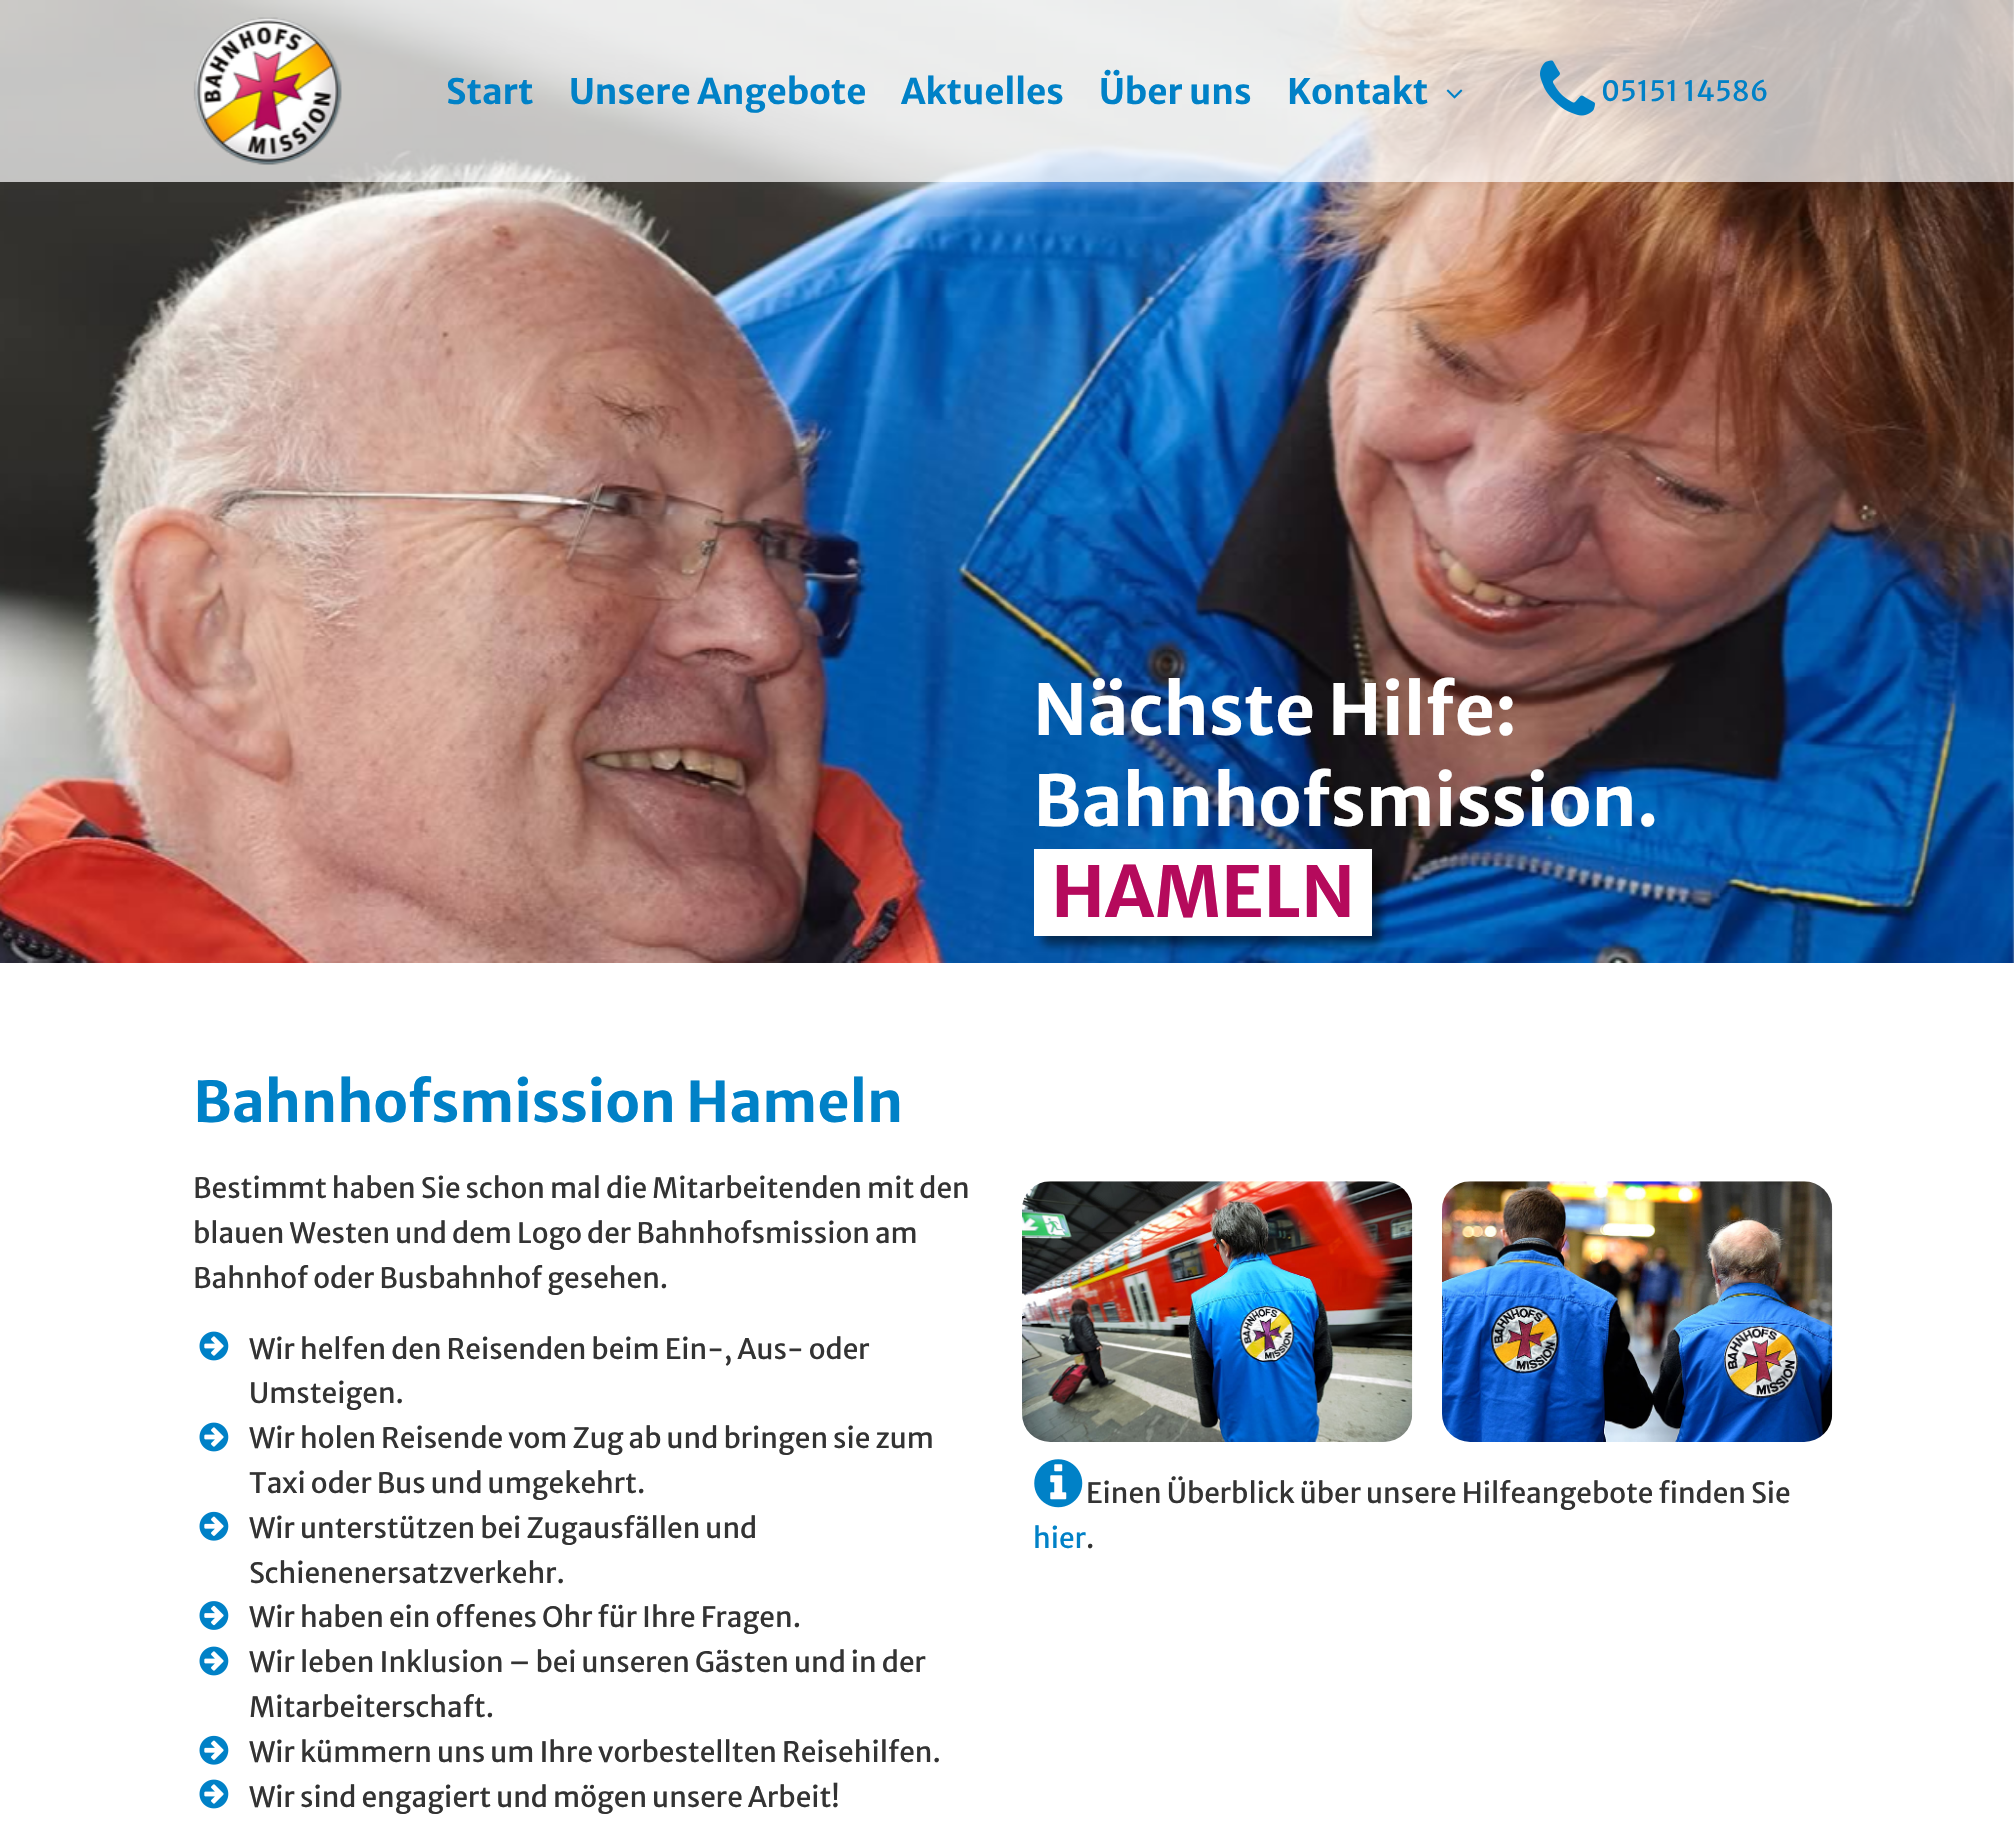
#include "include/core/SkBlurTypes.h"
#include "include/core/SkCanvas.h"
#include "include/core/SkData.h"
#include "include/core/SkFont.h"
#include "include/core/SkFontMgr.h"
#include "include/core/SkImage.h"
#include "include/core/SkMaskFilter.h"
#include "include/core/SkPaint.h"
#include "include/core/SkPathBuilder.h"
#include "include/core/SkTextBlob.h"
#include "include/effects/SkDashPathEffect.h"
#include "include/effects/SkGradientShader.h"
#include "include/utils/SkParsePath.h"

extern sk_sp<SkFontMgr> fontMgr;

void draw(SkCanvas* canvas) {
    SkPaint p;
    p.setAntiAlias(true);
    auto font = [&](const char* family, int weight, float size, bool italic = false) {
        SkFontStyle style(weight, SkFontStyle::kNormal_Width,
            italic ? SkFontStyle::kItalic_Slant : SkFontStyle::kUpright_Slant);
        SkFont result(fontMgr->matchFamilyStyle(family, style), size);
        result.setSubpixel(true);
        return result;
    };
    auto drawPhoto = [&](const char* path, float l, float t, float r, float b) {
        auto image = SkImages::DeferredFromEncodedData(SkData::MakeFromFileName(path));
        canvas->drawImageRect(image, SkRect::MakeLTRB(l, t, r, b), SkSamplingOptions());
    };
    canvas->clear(0xFFFFFFFF);
    drawPhoto("media/4.png", 0, 0, 2014, 963);
    p.setColor(0xB3FFFFFF);
    canvas->drawRect(SkRect::MakeLTRB(0, 0, 2014, 182), p);
    drawPhoto("media/1.png", 193, 17, 342, 165);
    auto font1 = font("Merriweather Sans", 700, 35);
    p.setColor(0xFF0081C7);
    {
        const struct { const char* s; float x, y; } items[] = {
            {"Start", 446, 104},
            {"Unsere Angebote", 569, 104},
            {"Aktuelles", 901, 104},
            {"Über uns", 1099, 104},
            {"Kontakt", 1287, 104},
        };
        for (auto [s, x, y] : items) {
            canvas->drawString(s, x, y, font1, p);
        }
    }
    drawPhoto("media/2.png", 1446, 89, 1463, 99);
    drawPhoto("media/3.png", 1540, 60, 1595, 116);
    auto font2 = font("Merriweather Sans", 400, 28);
    canvas->drawString("05151 14586", 1601, 101, font2, p);
    auto font3 = font("Merriweather Sans", 700, 70);
    p.setColor(0xFFFFFFFF);
    canvas->drawString("Nächste Hilfe:", 1033, 735, font3, p);
    canvas->drawString("Bahnhofsmission.", 1033, 826, font3, p);
    p.setColor(0x80000000);
    p.setMaskFilter(SkMaskFilter::MakeBlur(kNormal_SkBlurStyle, 4.5f));
    canvas->drawRect(SkRect::MakeLTRB(1043, 858, 1381, 945), p);
    p.setMaskFilter(nullptr);
    p.setColor(0xFFFFFFFF);
    canvas->drawRect(SkRect::MakeLTRB(1034, 849, 1372, 936), p);
    p.setColor(0xFFB50A5C);
    canvas->drawString("HAMELN", 1051, 917, font3, p);
    auto font4 = font("Merriweather Sans", 700, 56);
    p.setColor(0xFF0081C7);
    canvas->drawString("Bahnhofsmission Hameln", 193, 1122, font4, p);
    p.setColor(0xFF333333);
    {
        const struct { const char* s; float x, y; } items[] = {
            {"Bestimmt haben Sie schon mal die Mitarbeitenden mit den", 193, 1198},
            {"blauen Westen und dem Logo der Bahnhofsmission am", 193, 1243},
            {"Bahnhof oder Busbahnhof gesehen.", 193, 1288},
        };
        for (auto [s, x, y] : items) {
            canvas->drawString(s, x, y, font2, p);
        }
    }
    drawPhoto("media/5.png", 199, 1331, 229, 1361);
    canvas->drawString("Wir helfen den Reisenden beim Ein-, Aus- oder", 249, 1359, font2, p);
    canvas->drawString("Umsteigen.", 249, 1403, font2, p);
    drawPhoto("media/5.png", 199, 1422, 229, 1452);
    canvas->drawString("Wir holen Reisende vom Zug ab und bringen sie zum", 249, 1448, font2, p);
    canvas->drawString("Taxi oder Bus und umgekehrt.", 249, 1493, font2, p);
    drawPhoto("media/6.png", 199, 1511, 229, 1541);
    canvas->drawString("Wir unterstützen bei Zugausfällen und", 249, 1538, font2, p);
    canvas->drawString("Schienenersatzverkehr.", 249, 1583, font2, p);
    drawPhoto("media/7.png", 199, 1601, 229, 1630);
    canvas->drawString("Wir haben ein offenes Ohr für Ihre Fragen.", 249, 1627, font2, p);
    drawPhoto("media/5.png", 199, 1646, 229, 1676);
    canvas->drawString("Wir leben Inklusion – bei unseren Gästen und in der", 249, 1672, font2, p);
    canvas->drawString("Mitarbeiterschaft.", 249, 1717, font2, p);
    drawPhoto("media/6.png", 199, 1735, 229, 1765);
    canvas->drawString("Wir kümmern uns um Ihre vorbestellten Reisehilfen.", 249, 1762, font2, p);
    drawPhoto("media/5.png", 199, 1779, 229, 1809);
    canvas->drawString("Wir sind engagiert und mögen unsere Arbeit!", 249, 1807, font2, p);
    drawPhoto("media/8.png", 1022, 1181, 1413, 1442);
    drawPhoto("media/9.png", 1442, 1181, 1833, 1442);
    drawPhoto("media/10.png", 1034, 1459, 1083, 1508);
    canvas->drawString("Einen Überblick über unsere Hilfeangebote finden Sie", 1086, 1503, font2, p);
    p.setColor(0xFF0081C7);
    canvas->drawString("hier", 1033, 1548, font2, p);
    p.setColor(0xFF333333);
    canvas->drawString(".", 1086, 1548, font2, p);
}
